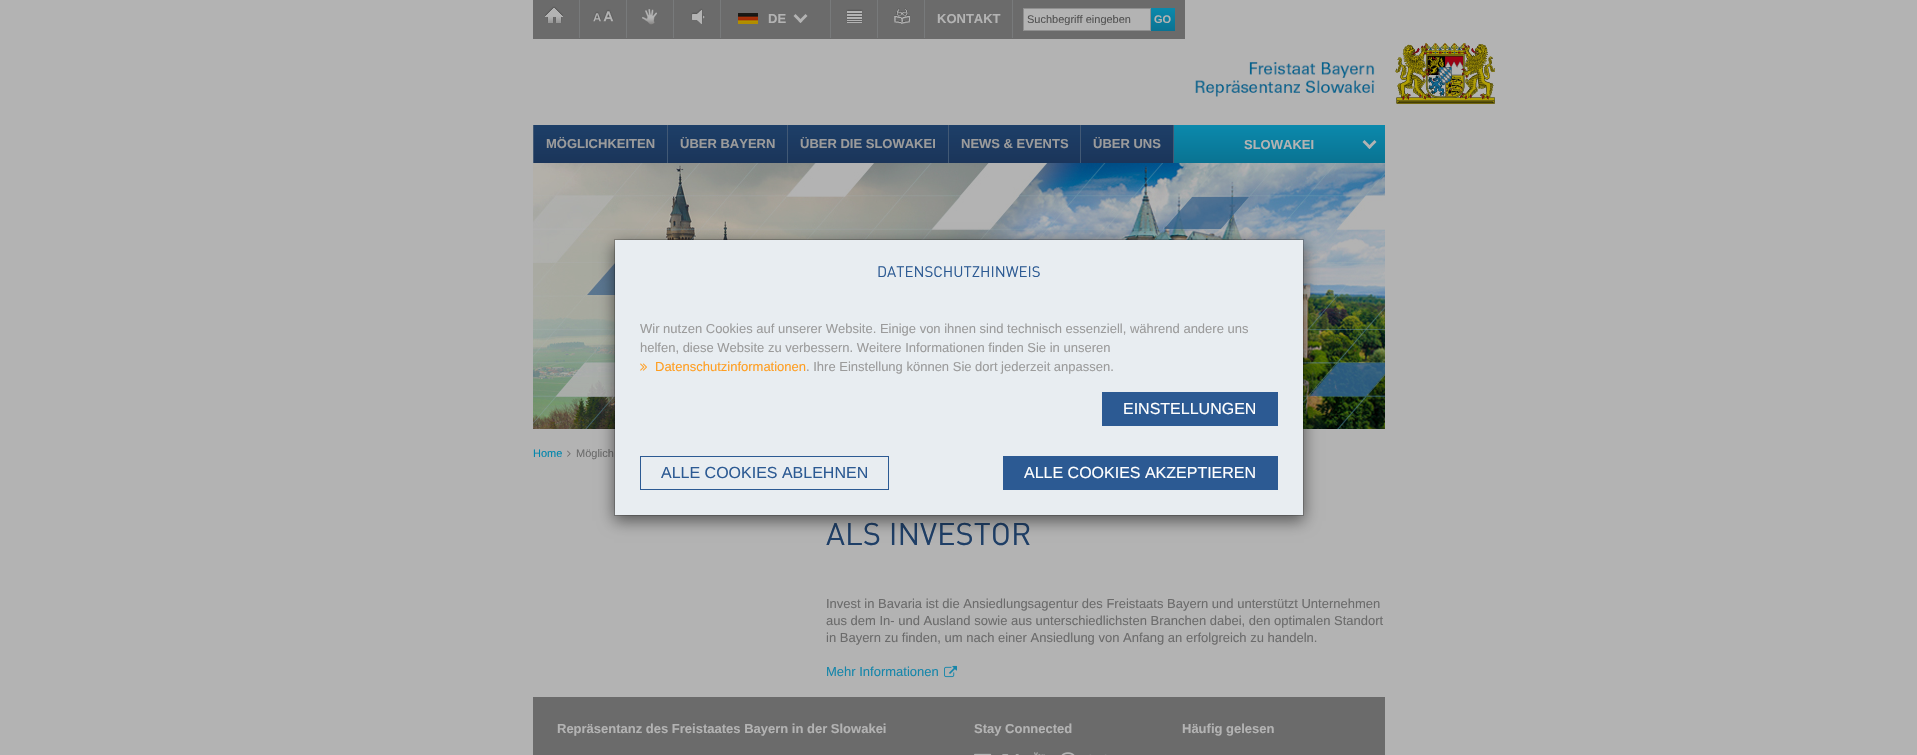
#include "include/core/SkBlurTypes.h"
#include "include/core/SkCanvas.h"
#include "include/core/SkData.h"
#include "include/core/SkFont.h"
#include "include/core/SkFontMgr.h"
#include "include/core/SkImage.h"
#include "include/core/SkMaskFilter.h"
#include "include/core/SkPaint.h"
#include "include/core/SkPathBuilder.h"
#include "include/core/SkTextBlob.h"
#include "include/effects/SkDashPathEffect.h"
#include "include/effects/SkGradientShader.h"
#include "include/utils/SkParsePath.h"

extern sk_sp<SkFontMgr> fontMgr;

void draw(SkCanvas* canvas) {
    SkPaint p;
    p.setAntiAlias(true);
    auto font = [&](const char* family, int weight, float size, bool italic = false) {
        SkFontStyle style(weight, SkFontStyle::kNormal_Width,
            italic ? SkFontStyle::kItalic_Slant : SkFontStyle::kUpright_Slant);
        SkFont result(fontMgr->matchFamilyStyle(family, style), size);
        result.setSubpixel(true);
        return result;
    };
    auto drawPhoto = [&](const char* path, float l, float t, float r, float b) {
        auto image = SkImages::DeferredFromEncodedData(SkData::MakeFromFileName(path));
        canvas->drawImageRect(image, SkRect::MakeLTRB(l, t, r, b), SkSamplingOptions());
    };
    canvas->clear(0xFFB3B3B3);
    p.setColor(0xFF6B6B6B);
    canvas->drawRect(SkRect::MakeLTRB(533, 0, 1185, 39), p);
    p.setColor(0xFF787A7B);
    canvas->drawRect(SkRect::MakeLTRB(579, 0, 580, 38), p);
    drawPhoto("media/1.png", 545, 6, 563, 23);
    canvas->drawRect(SkRect::MakeLTRB(626, 0, 627, 38), p);
    drawPhoto("media/2.png", 593, 9, 614, 22);
    canvas->drawRect(SkRect::MakeLTRB(673, 0, 674, 38), p);
    drawPhoto("media/3.png", 642, 9, 657, 25);
    canvas->drawRect(SkRect::MakeLTRB(720, 0, 721, 38), p);
    drawPhoto("media/4.png", 691, 8, 705, 24);
    canvas->drawRect(SkRect::MakeLTRB(830, 0, 831, 38), p);
    drawPhoto("media/5.png", 738, 13, 758, 24);
    auto font1 = font("Liberation Sans", 700, 13);
    p.setColor(0xFFB3B3B3);
    canvas->drawString("DE", 768, 23, font1, p);
    canvas->drawPath(SkPathBuilder().moveTo(805.5f, 14).lineTo(807.5f, 16).lineTo(800.5f, 23).lineTo(798.5f, 21).close().detach(), p);
    canvas->drawPath(SkPathBuilder().moveTo(795.5f, 14).lineTo(802.5f, 21).lineTo(800.5f, 23).lineTo(793.5f, 16).close().detach(), p);
    p.setColor(0xFF787A7B);
    canvas->drawRect(SkRect::MakeLTRB(877, 0, 878, 38), p);
    drawPhoto("media/6.png", 846, 9, 863, 23);
    canvas->drawRect(SkRect::MakeLTRB(924, 0, 925, 38), p);
    drawPhoto("media/7.png", 894, 8, 910, 24);
    canvas->drawRect(SkRect::MakeLTRB(1012, 0, 1013, 38), p);
    p.setColor(0xFFB3B3B3);
    canvas->drawString("KONTAKT", 937, 23, font1, p);
    canvas->drawRect(SkRect::MakeLTRB(1023.5f, 8.5f, 1150.5f, 30.5f), p);
    p.setStyle(SkPaint::kStroke_Style);
    p.setStrokeWidth(1);
    p.setColor(0xFF8F8F8F);
    canvas->drawRect(SkRect::MakeLTRB(1023.5f, 8.5f, 1150.5f, 30.5f), p);
    canvas->save();
    canvas->clipRect(SkRect::MakeLTRB(1027, 13, 1147, 25));
    auto font2 = font("Liberation Sans", 400, 11);
    p.setStyle(SkPaint::kFill_Style);
    p.setColor(0xFF525252);
    canvas->drawString("Suchbegriff eingeben", 1027, 23, font2, p);
    canvas->restore();
    {
        const SkColor colors[] = {0xFF0B89AC, 0xFF0A7392};
        const float stops[] = {0, 1};
        const SkPoint ends[] = {{1163, 8}, {1163, 31}};
        p.setShader(SkGradientShader::MakeLinear(ends, colors, stops, 2, SkTileMode::kClamp));
        p.setAlpha(255);
    }
    canvas->drawRect(SkRect::MakeLTRB(1151, 8, 1175, 31), p);
    auto font3 = font("Liberation Sans", 700, 11);
    p.setShader(nullptr);
    p.setColor(0xFFB3B3B3);
    canvas->drawString("GO", 1154, 23, font3, p);
    drawPhoto("media/8.png", 1195, 62, 1375, 97);
    drawPhoto("media/9.png", 1395, 43, 1495, 104);
    {
        const SkColor colors[] = {0xFF1D3F68, 0xFF1B355A};
        const float stops[] = {0, 1};
        const SkPoint ends[] = {{601, 125}, {601, 163}};
        p.setShader(SkGradientShader::MakeLinear(ends, colors, stops, 2, SkTileMode::kClamp));
        p.setAlpha(255);
    }
    canvas->drawRect(SkRect::MakeLTRB(534, 125, 667, 163), p);
    p.setShader(nullptr);
    p.setColor(0xFF425975);
    canvas->drawRect(SkRect::MakeLTRB(533, 125, 534, 163), p);
    p.setColor(0xFF9B9B9B);
    canvas->drawString("MÖGLICHKEITEN", 546, 148, font1, p);
    {
        const SkColor colors[] = {0xFF1D3F68, 0xFF1B355A};
        const float stops[] = {0, 1};
        const SkPoint ends[] = {{728, 125}, {728, 163}};
        p.setShader(SkGradientShader::MakeLinear(ends, colors, stops, 2, SkTileMode::kClamp));
        p.setAlpha(255);
    }
    canvas->drawRect(SkRect::MakeLTRB(668, 125, 787, 163), p);
    p.setShader(nullptr);
    p.setColor(0xFF425975);
    canvas->drawRect(SkRect::MakeLTRB(667, 125, 668, 163), p);
    p.setColor(0xFF9B9B9B);
    canvas->drawString("ÜBER BAYERN", 680, 148, font1, p);
    {
        const SkColor colors[] = {0xFF1D3F68, 0xFF1B355A};
        const float stops[] = {0, 1};
        const SkPoint ends[] = {{868, 125}, {868, 163}};
        p.setShader(SkGradientShader::MakeLinear(ends, colors, stops, 2, SkTileMode::kClamp));
        p.setAlpha(255);
    }
    canvas->drawRect(SkRect::MakeLTRB(788, 125, 948, 163), p);
    p.setShader(nullptr);
    p.setColor(0xFF425975);
    canvas->drawRect(SkRect::MakeLTRB(787, 125, 788, 163), p);
    p.setColor(0xFF9B9B9B);
    canvas->drawString("ÜBER DIE SLOWAKEI", 800, 148, font1, p);
    {
        const SkColor colors[] = {0xFF1D3F68, 0xFF1B355A};
        const float stops[] = {0, 1};
        const SkPoint ends[] = {{1015, 125}, {1015, 163}};
        p.setShader(SkGradientShader::MakeLinear(ends, colors, stops, 2, SkTileMode::kClamp));
        p.setAlpha(255);
    }
    canvas->drawRect(SkRect::MakeLTRB(949, 125, 1080, 163), p);
    p.setShader(nullptr);
    p.setColor(0xFF425975);
    canvas->drawRect(SkRect::MakeLTRB(948, 125, 949, 163), p);
    p.setColor(0xFF9B9B9B);
    canvas->drawString("NEWS & EVENTS", 961, 148, font1, p);
    {
        const SkColor colors[] = {0xFF1D3F68, 0xFF1B355A};
        const float stops[] = {0, 1};
        const SkPoint ends[] = {{1127, 125}, {1127, 163}};
        p.setShader(SkGradientShader::MakeLinear(ends, colors, stops, 2, SkTileMode::kClamp));
        p.setAlpha(255);
    }
    canvas->drawRect(SkRect::MakeLTRB(1081, 125, 1173, 163), p);
    p.setShader(nullptr);
    p.setColor(0xFF425975);
    canvas->drawRect(SkRect::MakeLTRB(1080, 125, 1081, 163), p);
    p.setColor(0xFF9B9B9B);
    canvas->drawString("ÜBER UNS", 1093, 148, font1, p);
    {
        const SkColor colors[] = {0xFF0B89AC, 0xFF0A7392};
        const float stops[] = {0, 1};
        const SkPoint ends[] = {{1280, 125}, {1280, 163}};
        p.setShader(SkGradientShader::MakeLinear(ends, colors, stops, 2, SkTileMode::kClamp));
        p.setAlpha(255);
    }
    canvas->drawRect(SkRect::MakeLTRB(1174, 125, 1385, 163), p);
    p.setShader(nullptr);
    p.setColor(0xFF425975);
    canvas->drawRect(SkRect::MakeLTRB(1173, 125, 1174, 163), p);
    p.setColor(0xFFB3B3B3);
    canvas->drawString("SLOWAKEI", 1244, 149, font1, p);
    canvas->drawPath(SkPathBuilder().moveTo(1374.5f, 140).lineTo(1376.5f, 142).lineTo(1369.5f, 149).lineTo(1367.5f, 147).close().detach(), p);
    canvas->drawPath(SkPathBuilder().moveTo(1364.5f, 140).lineTo(1371.5f, 147).lineTo(1369.5f, 149).lineTo(1362.5f, 142).close().detach(), p);
    drawPhoto("media/10.png", 533, 163, 1385, 429);
    p.setColor(0xFF0085AC);
    canvas->drawString("Home", 533, 457, font2, p);
    drawPhoto("media/11.png", 567, 450, 571, 457);
    p.setColor(0xFF6B6B6B);
    canvas->drawString("Möglich", 576, 457, font2, p);
    auto font4 = font("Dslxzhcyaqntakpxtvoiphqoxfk", 400, 31);
    p.setColor(0xFF1F3F67);
    canvas->drawString("ALS INVESTOR", 826, 545, font4, p);
    auto font5 = font("Liberation Sans", 400, 13);
    p.setColor(0xFF6B6B6B);
    {
        const struct { const char* s; float x, y; } items[] = {
            {"Invest in Bavaria ist die Ansiedlungsagentur des Freistaats Bayern und unterstützt Unternehmen", 826, 608},
            {"aus dem In- und Ausland sowie aus unterschiedlichsten Branchen dabei, den optimalen Standort", 826, 625},
            {"in Bayern zu finden, um nach einer Ansiedlung von Anfang an erfolgreich zu handeln.", 826, 642},
        };
        for (auto [s, x, y] : items) {
            canvas->drawString(s, x, y, font5, p);
        }
    }
    p.setColor(0xFF1686AA);
    canvas->drawString("Mehr Informationen", 826, 676, font5, p);
    drawPhoto("media/12.png", 944, 665, 957, 678);
    p.setColor(0xFF6B6B6B);
    canvas->drawRect(SkRect::MakeLTRB(533, 697, 1385, 755), p);
    p.setColor(0xFFB3B3B3);
    canvas->drawString("Repräsentanz des Freistaates Bayern in der Slowakei", 557, 733, font1, p);
    canvas->drawString("Stay Connected", 974, 733, font1, p);
    drawPhoto("media/13.png", 974, 753, 992, 755);
    drawPhoto("media/14.png", 1002, 754, 1019, 755);
    drawPhoto("media/15.png", 1034, 752, 1045, 755);
    drawPhoto("media/16.png", 1061, 752, 1075, 755);
    drawPhoto("media/17.png", 1089, 754, 1107, 755);
    canvas->drawString("Häufig gelesen", 1182, 733, font1, p);
    p.setColor(0x80000000);
    p.setMaskFilter(SkMaskFilter::MakeBlur(kNormal_SkBlurStyle, 7.5f));
    canvas->drawRect(SkRect::MakeLTRB(614, 244, 1304, 521), p);
    p.setMaskFilter(nullptr);
    p.setColor(0xFFE8EDF1);
    canvas->drawRect(SkRect::MakeLTRB(615, 240, 1303, 515), p);
    p.setStyle(SkPaint::kStroke_Style);
    p.setColor(0x33000000);
    canvas->drawRect(SkRect::MakeLTRB(614.5f, 239.5f, 1303.5f, 515.5f), p);
    auto font6 = font("Dslxzhcyaqntakpxtvoiphqoxfk", 400, 15);
    p.setStyle(SkPaint::kFill_Style);
    p.setColor(0xFF2C5A93);
    canvas->drawString("DATENSCHUTZHINWEIS", 877, 277, font6, p);
    p.setColor(0xFF9B9B9B);
    canvas->drawString("Wir nutzen Cookies auf unserer Website. Einige von ihnen sind technisch essenziell, während andere uns", 640, 333, font5, p);
    canvas->drawString("helfen, diese Website zu verbessern. Weitere Informationen finden Sie in unseren", 640, 352, font5, p);
    drawPhoto("media/18.png", 640, 363, 647, 371);
    p.setColor(0xFFFF9E21);
    canvas->drawString("Datenschutzinformationen", 655, 371, font5, p);
    p.setColor(0xFF9B9B9B);
    canvas->drawString(". Ihre Einstellung können Sie dort jederzeit anpassen.", 806, 371, font5, p);
    p.setColor(0xFF2C5A93);
    canvas->drawRect(SkRect::MakeLTRB(1102, 392, 1278, 426), p);
    auto font7 = font("Liberation Sans", 400, 16);
    p.setColor(0xFFFFFFFF);
    canvas->drawString("EINSTELLUNGEN", 1123, 414, font7, p);
    p.setStyle(SkPaint::kStroke_Style);
    p.setColor(0xFF2C5A93);
    canvas->drawRect(SkRect::MakeLTRB(640.5f, 456.5f, 888.5f, 489.5f), p);
    p.setStyle(SkPaint::kFill_Style);
    canvas->drawString("ALLE COOKIES ABLEHNEN", 661, 478, font7, p);
    canvas->drawRect(SkRect::MakeLTRB(1003, 456, 1278, 490), p);
    p.setColor(0xFFFFFFFF);
    canvas->drawString("ALLE COOKIES AKZEPTIEREN", 1024, 478, font7, p);
}
